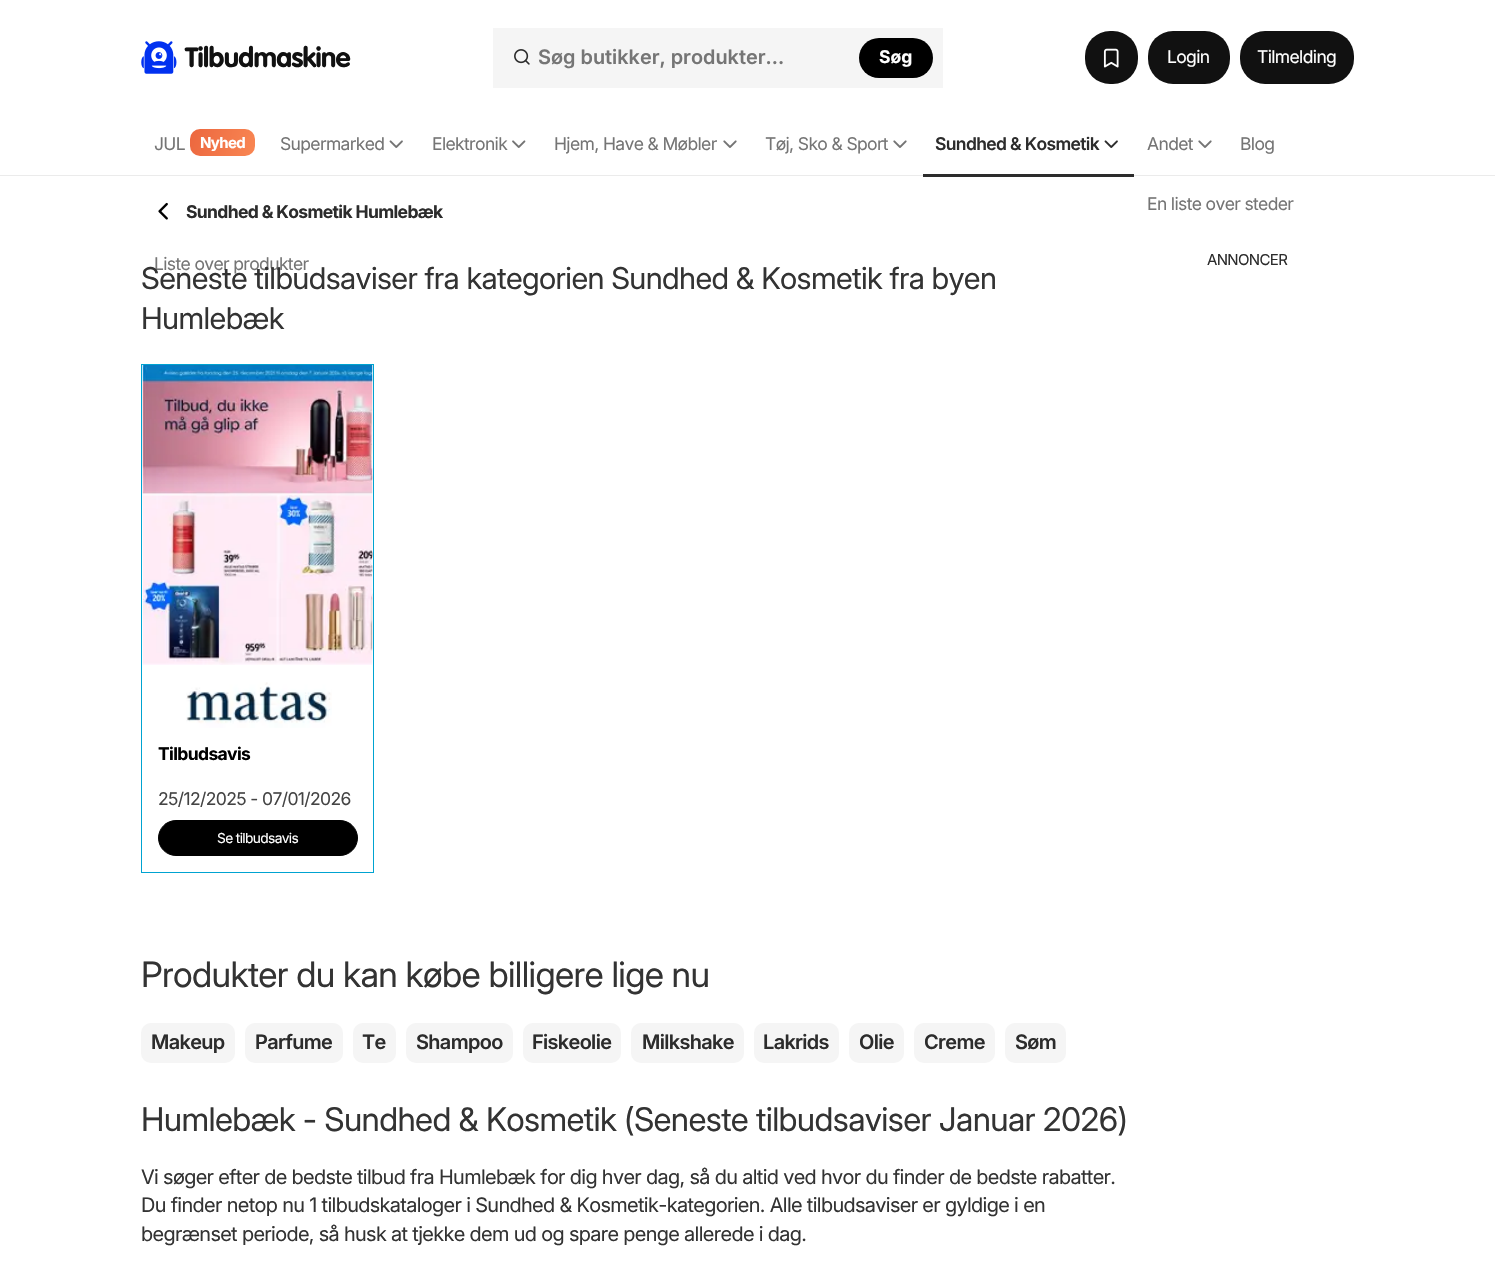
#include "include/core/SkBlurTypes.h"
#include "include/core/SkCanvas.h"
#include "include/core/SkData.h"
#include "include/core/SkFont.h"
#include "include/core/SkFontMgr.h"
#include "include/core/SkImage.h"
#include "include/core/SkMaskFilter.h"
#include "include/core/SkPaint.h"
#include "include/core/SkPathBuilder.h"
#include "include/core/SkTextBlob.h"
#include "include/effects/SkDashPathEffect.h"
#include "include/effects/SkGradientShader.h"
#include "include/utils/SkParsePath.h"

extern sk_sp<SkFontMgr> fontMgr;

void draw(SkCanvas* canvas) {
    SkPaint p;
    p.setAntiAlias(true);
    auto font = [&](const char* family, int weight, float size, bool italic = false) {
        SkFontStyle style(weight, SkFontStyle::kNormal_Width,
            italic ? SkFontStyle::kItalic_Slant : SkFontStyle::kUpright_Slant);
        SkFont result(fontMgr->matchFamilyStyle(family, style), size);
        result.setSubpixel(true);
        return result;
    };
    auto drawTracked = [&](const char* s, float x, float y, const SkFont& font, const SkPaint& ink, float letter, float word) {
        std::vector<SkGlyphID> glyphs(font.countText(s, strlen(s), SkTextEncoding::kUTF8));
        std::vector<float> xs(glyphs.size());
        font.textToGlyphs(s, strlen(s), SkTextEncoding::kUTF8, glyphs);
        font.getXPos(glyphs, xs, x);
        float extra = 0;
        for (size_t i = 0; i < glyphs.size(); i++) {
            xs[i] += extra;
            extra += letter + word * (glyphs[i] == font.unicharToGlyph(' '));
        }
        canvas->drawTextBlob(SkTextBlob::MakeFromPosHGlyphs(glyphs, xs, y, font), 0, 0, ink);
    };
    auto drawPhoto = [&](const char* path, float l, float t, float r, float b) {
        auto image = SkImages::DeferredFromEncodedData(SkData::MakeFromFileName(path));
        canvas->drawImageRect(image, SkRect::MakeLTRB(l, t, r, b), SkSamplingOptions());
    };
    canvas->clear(0xFFFFFFFF);
    drawPhoto("media/1.png", 141, 41, 177, 74);
    auto font1 = font("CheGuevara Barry", 700, 27.5f);
    p.setColor(0xFF111111);
    drawTracked("Tilbudmaskine", 185, 67, font1, p, -0.64f, 0);
    p.setColor(0x0A000000);
    canvas->drawRect(SkRect::MakeLTRB(493, 28, 943, 88), p);
    drawPhoto("media/2.png", 514, 49, 530, 65);
    auto font2 = font("Inter", 600, 20);
    p.setColor(0xFF757575);
    canvas->drawString("Søg butikker, produkter...", 538, 64, font2, p);
    p.setColor(0xFF000000);
    canvas->drawRoundRect(SkRect::MakeLTRB(859, 38, 933, 78), 20, 20, p);
    auto font3 = font("Inter", 700, 17.5f);
    p.setColor(0xFFFFFFFF);
    canvas->drawString("Søg", 879, 63, font3, p);
    p.setColor(0xFF111111);
    canvas->drawRoundRect(SkRect::MakeLTRB(1085, 31, 1138, 84), 25, 25, p);
    drawPhoto("media/3.png", 1103, 48, 1119, 68);
    canvas->drawRoundRect(SkRect::MakeLTRB(1148, 31, 1230, 84), 25, 25, p);
    auto font4 = font("Inter", 400, 17.5f);
    p.setColor(0xFFFFFFFF);
    drawTracked("Login", 1167, 63, font4, p, -0.64f, 0);
    p.setColor(0xFF111111);
    canvas->drawRoundRect(SkRect::MakeLTRB(1240, 31, 1354, 84), 25, 25, p);
    p.setColor(0xFFFFFFFF);
    drawTracked("Tilmelding", 1257, 63, font4, p, -0.64f, 0);
    p.setColor(0xFFEBEBEB);
    canvas->drawRect(SkRect::MakeLTRB(0, 175, 1495, 176), p);
    p.setColor(0xFF757575);
    drawTracked("JUL", 154, 150, font4, p, -0.64f, 0);
    {
        const SkColor colors[] = {0xFFEC673F, 0xFFF98753};
        const float stops[] = {0.01f, 1};
        const SkPoint ends[] = {{189, 132}, {257, 153}};
        p.setShader(SkGradientShader::MakeLinear(ends, colors, stops, 2, SkTileMode::kClamp));
        p.setAlpha(255);
    }
    canvas->drawRoundRect(SkRect::MakeLTRB(190, 129, 255, 156), 10, 10, p);
    auto font5 = font("Inter", 700, 15);
    p.setShader(nullptr);
    p.setColor(0xFFFFFFFF);
    drawTracked("Nyhed", 200, 148, font5, p, -0.64f, 0);
    p.setColor(0xFF757575);
    drawTracked("Supermarked", 280, 150, font4, p, -0.64f, 0);
    drawPhoto("media/4.png", 389, 140, 403, 148);
    drawTracked("Elektronik", 432, 150, font4, p, -0.64f, 0);
    drawPhoto("media/5.png", 512, 140, 526, 148);
    drawTracked("Hjem, Have & Møbler", 554, 150, font4, p, -0.64f, 0);
    drawPhoto("media/6.png", 723, 140, 737, 148);
    drawTracked("Tøj, Sko & Sport", 765, 150, font4, p, -0.64f, 0);
    drawPhoto("media/6.png", 893, 140, 907, 148);
    p.setColor(0xFF2C2C2C);
    canvas->drawRect(SkRect::MakeLTRB(923, 174, 1134, 177), p);
    auto font6 = font("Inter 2", 600, 17.5f);
    drawTracked("Sundhed & Kosmetik", 935, 150, font6, p, -0.64f, 0);
    drawPhoto("media/7.png", 1104, 140, 1118, 148);
    p.setColor(0xFF757575);
    drawTracked("Andet", 1147, 150, font4, p, -0.64f, 0);
    drawPhoto("media/6.png", 1198, 140, 1212, 148);
    {
        const struct { const char* s; float x, y; } items[] = {
            {"Blog", 1240, 150},
            {"En liste over steder", 1147, 210},
            {"Liste over produkter", 154, 270},
        };
        for (auto [s, x, y] : items) {
            drawTracked(s, x, y, font4, p, -0.64f, 0);
        }
    }
    drawPhoto("media/8.png", 158, 202, 168, 220);
    p.setColor(0xFF2C2C2C);
    drawTracked("Sundhed & Kosmetik Humlebæk", 186, 218, font3, p, -0.64f, 0);
    auto font7 = font("Inter", 400, 15);
    drawTracked("ANNONCER", 1207, 265, font7, p, -0.64f, 0);
    auto font8 = font("Inter 2", 400, 30);
    p.setColor(0xFF333333);
    drawTracked("Seneste tilbudsaviser fra kategorien Sundhed & Kosmetik fra byen", 141, 289, font8, p, -0.62f, 0);
    drawTracked("Humlebæk", 141, 329, font8, p, -0.62f, 0);
    p.setStyle(SkPaint::kStroke_Style);
    p.setStrokeWidth(1);
    p.setColor(0xFF00A3D1);
    canvas->drawRect(SkRect::MakeLTRB(141.5f, 364.5f, 373.5f, 872.5f), p);
    drawPhoto("media/9.png", 142, 365, 373, 665);
    drawPhoto("media/10.png", 186, 682, 332, 728);
    p.setStyle(SkPaint::kFill_Style);
    p.setColor(0xFF000000);
    drawTracked("Tilbudsavis", 158, 760, font3, p, -0.62f, 0);
    p.setColor(0xFF444444);
    drawTracked("25/12/2025 - 07/01/2026", 158, 805, font4, p, -0.62f, 0);
    p.setColor(0xFF000000);
    canvas->drawRoundRect(SkRect::MakeLTRB(158.5f, 820.5f, 357.5f, 855.5f), 17.5f, 17.5f, p);
    p.setStyle(SkPaint::kStroke_Style);
    canvas->drawRoundRect(SkRect::MakeLTRB(158.5f, 820.5f, 357.5f, 855.5f), 17.5f, 17.5f, p);
    auto font9 = font("Inter", 400, 13.75f);
    p.setStyle(SkPaint::kFill_Style);
    p.setColor(0xFFFFFFFF);
    drawTracked("Se tilbudsavis", 217, 843, font9, p, -0.64f, 0);
    auto font10 = font("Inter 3", 400, 35);
    p.setColor(0xFF333333);
    drawTracked("Produkter du kan købe billigere lige nu", 141, 987, font10, p, -0.62f, 0);
    p.setColor(0xFFF5F5F5);
    canvas->drawRoundRect(SkRect::MakeLTRB(141, 1023, 235, 1063), 10, 10, p);
    p.setColor(0xFF2C2C2C);
    drawTracked("Makeup", 151, 1049, font2, p, -0.64f, 0);
    p.setColor(0xFFF5F5F5);
    canvas->drawRoundRect(SkRect::MakeLTRB(245, 1023, 343, 1063), 10, 10, p);
    p.setColor(0xFF2C2C2C);
    drawTracked("Parfume", 255, 1049, font2, p, -0.64f, 0);
    p.setColor(0xFFF5F5F5);
    canvas->drawRoundRect(SkRect::MakeLTRB(353, 1023, 396, 1063), 10, 10, p);
    p.setColor(0xFF2C2C2C);
    drawTracked("Te", 362, 1049, font2, p, -0.64f, 0);
    p.setColor(0xFFF5F5F5);
    canvas->drawRoundRect(SkRect::MakeLTRB(406, 1023, 513, 1063), 10, 10, p);
    p.setColor(0xFF2C2C2C);
    drawTracked("Shampoo", 416, 1049, font2, p, -0.64f, 0);
    p.setColor(0xFFF5F5F5);
    canvas->drawRoundRect(SkRect::MakeLTRB(523, 1023, 621, 1063), 10, 10, p);
    p.setColor(0xFF2C2C2C);
    drawTracked("Fiskeolie", 532, 1049, font2, p, -0.64f, 0);
    p.setColor(0xFFF5F5F5);
    canvas->drawRoundRect(SkRect::MakeLTRB(631, 1023, 744, 1063), 10, 10, p);
    p.setColor(0xFF2C2C2C);
    drawTracked("Milkshake", 642, 1049, font2, p, -0.64f, 0);
    p.setColor(0xFFF5F5F5);
    canvas->drawRoundRect(SkRect::MakeLTRB(754, 1023, 839, 1063), 10, 10, p);
    p.setColor(0xFF2C2C2C);
    drawTracked("Lakrids", 763, 1049, font2, p, -0.64f, 0);
    p.setColor(0xFFF5F5F5);
    canvas->drawRoundRect(SkRect::MakeLTRB(849, 1023, 904, 1063), 10, 10, p);
    p.setColor(0xFF2C2C2C);
    drawTracked("Olie", 859, 1049, font2, p, -0.64f, 0);
    p.setColor(0xFFF5F5F5);
    canvas->drawRoundRect(SkRect::MakeLTRB(914, 1023, 995, 1063), 10, 10, p);
    p.setColor(0xFF2C2C2C);
    drawTracked("Creme", 924, 1049, font2, p, -0.64f, 0);
    p.setColor(0xFFF5F5F5);
    canvas->drawRoundRect(SkRect::MakeLTRB(1005, 1023, 1066, 1063), 10, 10, p);
    p.setColor(0xFF2C2C2C);
    drawTracked("Søm", 1015, 1049, font2, p, -0.64f, 0);
    auto font11 = font("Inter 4", 400, 32.5f);
    p.setColor(0xFF333333);
    drawTracked("Humlebæk - Sundhed & Kosmetik (Seneste tilbudsaviser Januar 2026)", 141, 1131, font11, p, -0.62f, 0);
    auto font12 = font("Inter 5", 400, 20);
    {
        const struct { const char* s; float x, y; } items[] = {
            {"Vi søger efter de bedste tilbud fra Humlebæk for dig hver dag, så du altid ved hvor du finder de bedste rabatter.", 141, 1184},
            {"Du finder netop nu 1 tilbudskataloger i Sundhed & Kosmetik-kategorien. Alle tilbudsaviser er gyldige i en", 141, 1212},
            {"begrænset periode, så husk at tjekke dem ud og spare penge allerede i dag.", 141, 1241},
        };
        for (auto [s, x, y] : items) {
            drawTracked(s, x, y, font12, p, -0.64f, 0);
        }
    }
}
